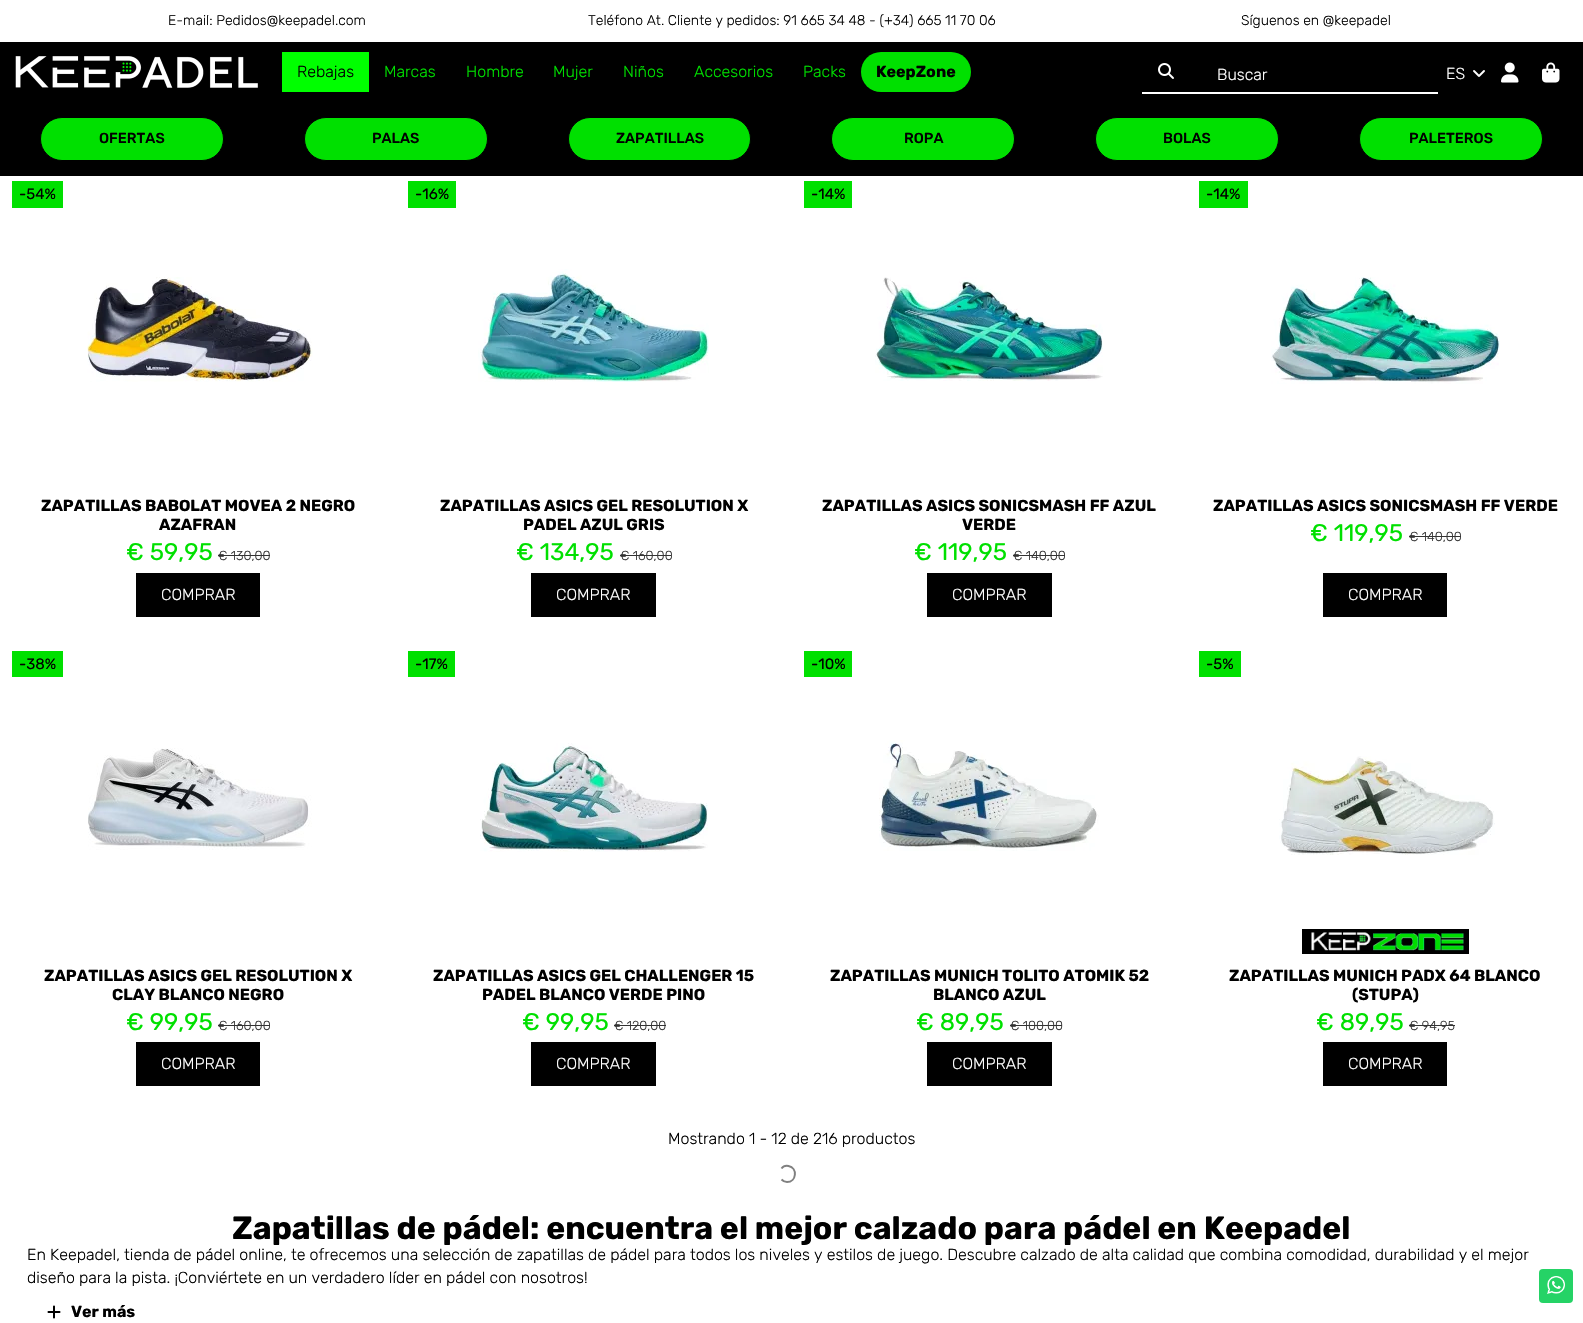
#include "include/core/SkBlurTypes.h"
#include "include/core/SkCanvas.h"
#include "include/core/SkData.h"
#include "include/core/SkFont.h"
#include "include/core/SkFontMgr.h"
#include "include/core/SkImage.h"
#include "include/core/SkMaskFilter.h"
#include "include/core/SkPaint.h"
#include "include/core/SkPathBuilder.h"
#include "include/core/SkTextBlob.h"
#include "include/effects/SkDashPathEffect.h"
#include "include/effects/SkGradientShader.h"
#include "include/utils/SkParsePath.h"

extern sk_sp<SkFontMgr> fontMgr;

void draw(SkCanvas* canvas) {
    SkPaint p;
    p.setAntiAlias(true);
    auto font = [&](const char* family, int weight, float size, bool italic = false) {
        SkFontStyle style(weight, SkFontStyle::kNormal_Width,
            italic ? SkFontStyle::kItalic_Slant : SkFontStyle::kUpright_Slant);
        SkFont result(fontMgr->matchFamilyStyle(family, style), size);
        result.setSubpixel(true);
        return result;
    };
    auto drawPhoto = [&](const char* path, float l, float t, float r, float b) {
        auto image = SkImages::DeferredFromEncodedData(SkData::MakeFromFileName(path));
        canvas->drawImageRect(image, SkRect::MakeLTRB(l, t, r, b), SkSamplingOptions());
    };
    canvas->clear(0xFFFFFFFF);
    p.setColor(0xFF000000);
    canvas->drawRect(SkRect::MakeLTRB(0, 42, 1583, 176), p);
    auto font1 = font("Rubik", 300, 14);
    {
        const struct { const char* s; float x, y; } items[] = {
            {"E-mail: Pedidos@keepadel.com", 168, 25},
            {"Teléfono At. Cliente y pedidos: 91 665 34 48 - (+34) 665 11 70 06", 588, 25},
            {"Síguenos en @keepadel", 1241, 25},
        };
        for (auto [s, x, y] : items) {
            canvas->drawString(s, x, y, font1, p);
        }
    }
    drawPhoto("media/1.png", 15, 56, 258, 88);
    p.setColor(0xFF00FF00);
    canvas->drawRect(SkRect::MakeLTRB(282, 52, 369, 92), p);
    auto font2 = font("Rubik", 300, 16);
    p.setColor(0xFF000000);
    canvas->drawString("Rebajas", 297, 77, font2, p);
    p.setColor(0xFF00E000);
    {
        const struct { const char* s; float x, y; } items[] = {
            {"Marcas", 384, 77},
            {"Hombre", 466, 77},
            {"Mujer", 553, 77},
            {"Niños", 623, 77},
            {"Accesorios", 694, 77},
            {"Packs", 803, 77},
        };
        for (auto [s, x, y] : items) {
            canvas->drawString(s, x, y, font2, p);
        }
    }
    canvas->drawRoundRect(SkRect::MakeLTRB(861, 52, 971, 92), 20, 20, p);
    auto font3 = font("Rubik", 700, 16);
    p.setColor(0xFF000000);
    canvas->drawString("KeepZone", 876, 77, font3, p);
    drawPhoto("media/2.png", 1158, 63, 1174, 79);
    p.setColor(0xFFFFFFFF);
    canvas->drawRect(SkRect::MakeLTRB(1142, 92, 1438, 94), p);
    canvas->drawString("Buscar", 1217, 80, font2, p);
    canvas->drawString("ES", 1446, 79, font2, p);
    drawPhoto("media/3.png", 1473, 70, 1485, 77);
    drawPhoto("media/4.png", 1501, 62, 1519, 83);
    drawPhoto("media/5.png", 1542, 62, 1560, 83);
    p.setColor(0xFF00E000);
    canvas->drawRoundRect(SkRect::MakeLTRB(40.5f, 117.5f, 223.5f, 160.5f), 21.5f, 21.5f, p);
    p.setStyle(SkPaint::kStroke_Style);
    p.setStrokeWidth(1);
    p.setColor(0xFF000000);
    canvas->drawRoundRect(SkRect::MakeLTRB(40.5f, 117.5f, 223.5f, 160.5f), 21.5f, 21.5f, p);
    auto font4 = font("Rubik", 500, 14.5f);
    p.setStyle(SkPaint::kFill_Style);
    canvas->drawString("OFERTAS", 99, 143, font4, p);
    p.setColor(0xFF00E000);
    canvas->drawRoundRect(SkRect::MakeLTRB(304.5f, 117.5f, 487.5f, 160.5f), 21.5f, 21.5f, p);
    p.setStyle(SkPaint::kStroke_Style);
    p.setColor(0xFF000000);
    canvas->drawRoundRect(SkRect::MakeLTRB(304.5f, 117.5f, 487.5f, 160.5f), 21.5f, 21.5f, p);
    p.setStyle(SkPaint::kFill_Style);
    canvas->drawString("PALAS", 372, 143, font4, p);
    p.setColor(0xFF00E000);
    canvas->drawRoundRect(SkRect::MakeLTRB(568.5f, 117.5f, 750.5f, 160.5f), 21.5f, 21.5f, p);
    p.setStyle(SkPaint::kStroke_Style);
    p.setColor(0xFF000000);
    canvas->drawRoundRect(SkRect::MakeLTRB(568.5f, 117.5f, 750.5f, 160.5f), 21.5f, 21.5f, p);
    p.setStyle(SkPaint::kFill_Style);
    canvas->drawString("ZAPATILLAS", 616, 143, font4, p);
    p.setColor(0xFF00E000);
    canvas->drawRoundRect(SkRect::MakeLTRB(831.5f, 117.5f, 1014.5f, 160.5f), 21.5f, 21.5f, p);
    p.setStyle(SkPaint::kStroke_Style);
    p.setColor(0xFF000000);
    canvas->drawRoundRect(SkRect::MakeLTRB(831.5f, 117.5f, 1014.5f, 160.5f), 21.5f, 21.5f, p);
    p.setStyle(SkPaint::kFill_Style);
    canvas->drawString("ROPA", 904, 143, font4, p);
    p.setColor(0xFF00E000);
    canvas->drawRoundRect(SkRect::MakeLTRB(1095.5f, 117.5f, 1278.5f, 160.5f), 21.5f, 21.5f, p);
    p.setStyle(SkPaint::kStroke_Style);
    p.setColor(0xFF000000);
    canvas->drawRoundRect(SkRect::MakeLTRB(1095.5f, 117.5f, 1278.5f, 160.5f), 21.5f, 21.5f, p);
    p.setStyle(SkPaint::kFill_Style);
    canvas->drawString("BOLAS", 1163, 143, font4, p);
    p.setColor(0xFF00E000);
    canvas->drawRoundRect(SkRect::MakeLTRB(1359.5f, 117.5f, 1542.5f, 160.5f), 21.5f, 21.5f, p);
    p.setStyle(SkPaint::kStroke_Style);
    p.setColor(0xFF000000);
    canvas->drawRoundRect(SkRect::MakeLTRB(1359.5f, 117.5f, 1542.5f, 160.5f), 21.5f, 21.5f, p);
    p.setStyle(SkPaint::kFill_Style);
    canvas->drawString("PALETEROS", 1409, 143, font4, p);
    p.setColor(0xFF00E000);
    canvas->drawRect(SkRect::MakeLTRB(12, 181, 63, 208), p);
    auto font5 = font("Rubik", 400, 15);
    p.setColor(0xFF000000);
    canvas->drawString("-54%", 19, 199, font5, p);
    drawPhoto("media/6.png", 87, 277, 313, 382);
    canvas->drawString("ZAPATILLAS BABOLAT MOVEA 2 NEGRO", 41, 511, font3, p);
    canvas->drawString("AZAFRAN", 159, 530, font3, p);
    auto font6 = font("Rubik", 400, 24);
    p.setColor(0xFF00E000);
    canvas->drawString("€ 59,95", 126, 560, font6, p);
    auto font7 = font("Rubik", 300, 13);
    p.setColor(0xFF333333);
    canvas->drawString("€ 130,00", 218, 560, font7, p);
    canvas->drawRect(SkRect::MakeLTRB(218, 555, 270, 556), p);
    p.setColor(0xFF000000);
    canvas->drawRect(SkRect::MakeLTRB(136, 573, 260, 617), p);
    p.setColor(0xFFFFFFFF);
    canvas->drawString("COMPRAR", 161, 600, font2, p);
    p.setColor(0xFF00E000);
    canvas->drawRect(SkRect::MakeLTRB(408, 181, 456, 208), p);
    p.setColor(0xFF000000);
    canvas->drawString("-16%", 415, 199, font5, p);
    drawPhoto("media/7.png", 478, 269, 709, 382);
    canvas->drawString("ZAPATILLAS ASICS GEL RESOLUTION X", 440, 511, font3, p);
    canvas->drawString("PADEL AZUL GRIS", 523, 530, font3, p);
    p.setColor(0xFF00E000);
    canvas->drawString("€ 134,95", 516, 560, font6, p);
    p.setColor(0xFF333333);
    canvas->drawString("€ 160,00", 620, 560, font7, p);
    canvas->drawRect(SkRect::MakeLTRB(620, 555, 671, 556), p);
    p.setColor(0xFF000000);
    canvas->drawRect(SkRect::MakeLTRB(531, 573, 656, 617), p);
    p.setColor(0xFFFFFFFF);
    canvas->drawString("COMPRAR", 556, 600, font2, p);
    p.setColor(0xFF00E000);
    canvas->drawRect(SkRect::MakeLTRB(804, 181, 852, 208), p);
    p.setColor(0xFF000000);
    canvas->drawString("-14%", 811, 199, font5, p);
    drawPhoto("media/8.png", 875, 277, 1103, 381);
    canvas->drawString("ZAPATILLAS ASICS SONICSMASH FF AZUL", 822, 511, font3, p);
    canvas->drawString("VERDE", 962, 530, font3, p);
    p.setColor(0xFF00E000);
    canvas->drawString("€ 119,95", 914, 560, font6, p);
    p.setColor(0xFF333333);
    canvas->drawString("€ 140,00", 1013, 560, font7, p);
    canvas->drawRect(SkRect::MakeLTRB(1013, 555, 1065, 556), p);
    p.setColor(0xFF000000);
    canvas->drawRect(SkRect::MakeLTRB(927, 573, 1052, 617), p);
    p.setColor(0xFFFFFFFF);
    canvas->drawString("COMPRAR", 952, 600, font2, p);
    p.setColor(0xFF00E000);
    canvas->drawRect(SkRect::MakeLTRB(1199, 181, 1248, 208), p);
    p.setColor(0xFF000000);
    canvas->drawString("-14%", 1206, 199, font5, p);
    drawPhoto("media/9.png", 1271, 277, 1500, 384);
    canvas->drawString("ZAPATILLAS ASICS SONICSMASH FF VERDE", 1213, 511, font3, p);
    p.setColor(0xFF00E000);
    canvas->drawString("€ 119,95", 1310, 541, font6, p);
    p.setColor(0xFF333333);
    canvas->drawString("€ 140,00", 1409, 541, font7, p);
    canvas->drawRect(SkRect::MakeLTRB(1409, 536, 1461, 537), p);
    p.setColor(0xFF000000);
    canvas->drawRect(SkRect::MakeLTRB(1323, 573, 1447, 617), p);
    p.setColor(0xFFFFFFFF);
    canvas->drawString("COMPRAR", 1348, 600, font2, p);
    p.setColor(0xFF00E000);
    canvas->drawRect(SkRect::MakeLTRB(12, 651, 63, 677), p);
    p.setColor(0xFF000000);
    canvas->drawString("-38%", 19, 669, font5, p);
    drawPhoto("media/10.png", 88, 748, 312, 850);
    canvas->drawString("ZAPATILLAS ASICS GEL RESOLUTION X", 44, 981, font3, p);
    canvas->drawString("CLAY BLANCO NEGRO", 112, 1000, font3, p);
    p.setColor(0xFF00E000);
    canvas->drawString("€ 99,95", 126, 1030, font6, p);
    p.setColor(0xFF333333);
    canvas->drawString("€ 160,00", 218, 1030, font7, p);
    canvas->drawRect(SkRect::MakeLTRB(218, 1025, 270, 1026), p);
    p.setColor(0xFF000000);
    canvas->drawRect(SkRect::MakeLTRB(136, 1042, 260, 1086), p);
    p.setColor(0xFFFFFFFF);
    canvas->drawString("COMPRAR", 161, 1069, font2, p);
    p.setColor(0xFF00E000);
    canvas->drawRect(SkRect::MakeLTRB(408, 651, 455, 677), p);
    p.setColor(0xFF000000);
    canvas->drawString("-17%", 415, 669, font5, p);
    drawPhoto("media/11.png", 480, 743, 708, 852);
    canvas->drawString("ZAPATILLAS ASICS GEL CHALLENGER 15", 433, 981, font3, p);
    canvas->drawString("PADEL BLANCO VERDE PINO", 482, 1000, font3, p);
    p.setColor(0xFF00E000);
    canvas->drawString("€ 99,95", 522, 1030, font6, p);
    p.setColor(0xFF333333);
    canvas->drawString("€ 120,00", 614, 1030, font7, p);
    canvas->drawRect(SkRect::MakeLTRB(614, 1025, 666, 1026), p);
    p.setColor(0xFF000000);
    canvas->drawRect(SkRect::MakeLTRB(531, 1042, 656, 1086), p);
    p.setColor(0xFFFFFFFF);
    canvas->drawString("COMPRAR", 556, 1069, font2, p);
    p.setColor(0xFF00E000);
    canvas->drawRect(SkRect::MakeLTRB(804, 651, 852, 677), p);
    p.setColor(0xFF000000);
    canvas->drawString("-10%", 811, 669, font5, p);
    drawPhoto("media/12.png", 879, 740, 1099, 851);
    canvas->drawString("ZAPATILLAS MUNICH TOLITO ATOMIK 52", 830, 981, font3, p);
    canvas->drawString("BLANCO AZUL", 933, 1000, font3, p);
    p.setColor(0xFF00E000);
    canvas->drawString("€ 89,95", 916, 1030, font6, p);
    p.setColor(0xFF333333);
    canvas->drawString("€ 100,00", 1010, 1030, font7, p);
    canvas->drawRect(SkRect::MakeLTRB(1010, 1025, 1062, 1026), p);
    p.setColor(0xFF000000);
    canvas->drawRect(SkRect::MakeLTRB(927, 1042, 1052, 1086), p);
    p.setColor(0xFFFFFFFF);
    canvas->drawString("COMPRAR", 952, 1069, font2, p);
    p.setColor(0xFF00E000);
    canvas->drawRect(SkRect::MakeLTRB(1199, 651, 1241, 677), p);
    p.setColor(0xFF000000);
    canvas->drawString("-5%", 1206, 669, font5, p);
    drawPhoto("media/13.png", 1279, 756, 1495, 855);
    drawPhoto("media/14.png", 1302, 929, 1469, 954);
    canvas->drawString("ZAPATILLAS MUNICH PADX 64 BLANCO", 1229, 981, font3, p);
    canvas->drawString("(STUPA)", 1352, 1000, font3, p);
    p.setColor(0xFF00E000);
    canvas->drawString("€ 89,95", 1316, 1030, font6, p);
    p.setColor(0xFF333333);
    canvas->drawString("€ 94,95", 1409, 1030, font7, p);
    canvas->drawRect(SkRect::MakeLTRB(1409, 1025, 1455, 1026), p);
    p.setColor(0xFF000000);
    canvas->drawRect(SkRect::MakeLTRB(1323, 1042, 1447, 1086), p);
    p.setColor(0xFFFFFFFF);
    canvas->drawString("COMPRAR", 1348, 1069, font2, p);
    p.setColor(0xFF000000);
    canvas->drawString("Mostrando 1 - 12 de 216 productos", 668, 1144, font2, p);
    p.setStyle(SkPaint::kStroke_Style);
    p.setStrokeWidth(2);
    p.setColor(0xFF808080);
    canvas->drawPath(SkPathBuilder().moveTo(781.5f, 1168.5f).cubicTo(783, 1166.5f, 786, 1165.5f, 788.5f, 1166).cubicTo(798, 1168, 796.5f, 1182, 787, 1182).cubicTo(785, 1182, 783, 1181, 781.5f, 1179.5f).detach(), p);
    auto font8 = font("Rubik", 700, 32);
    p.setStyle(SkPaint::kFill_Style);
    p.setColor(0xFF000000);
    canvas->drawString("Zapatillas de pádel: encuentra el mejor calzado para pádel en Keepadel", 232, 1239, font8, p);
    canvas->drawString("En Keepadel, tienda de pádel online, te ofrecemos una selección de zapatillas de pádel para todos los niveles y estilos de juego. Descubre calzado de alta calidad que combina comodidad, durabilidad y el mejor", 27, 1260, font2, p);
    canvas->drawString("diseño para la pista. ¡Conviértete en un verdadero líder en pádel con nosotros!", 27, 1283, font2, p);
    drawPhoto("media/15.png", 47, 1305, 61, 1319);
    canvas->drawString("Ver más", 71, 1317, font3, p);
    p.setColor(0xFF25D366);
    canvas->drawRoundRect(SkRect::MakeLTRB(1539, 1269, 1573, 1303), 4, 4, p);
    drawPhoto("media/16.png", 1547, 1276, 1565, 1294);
}
